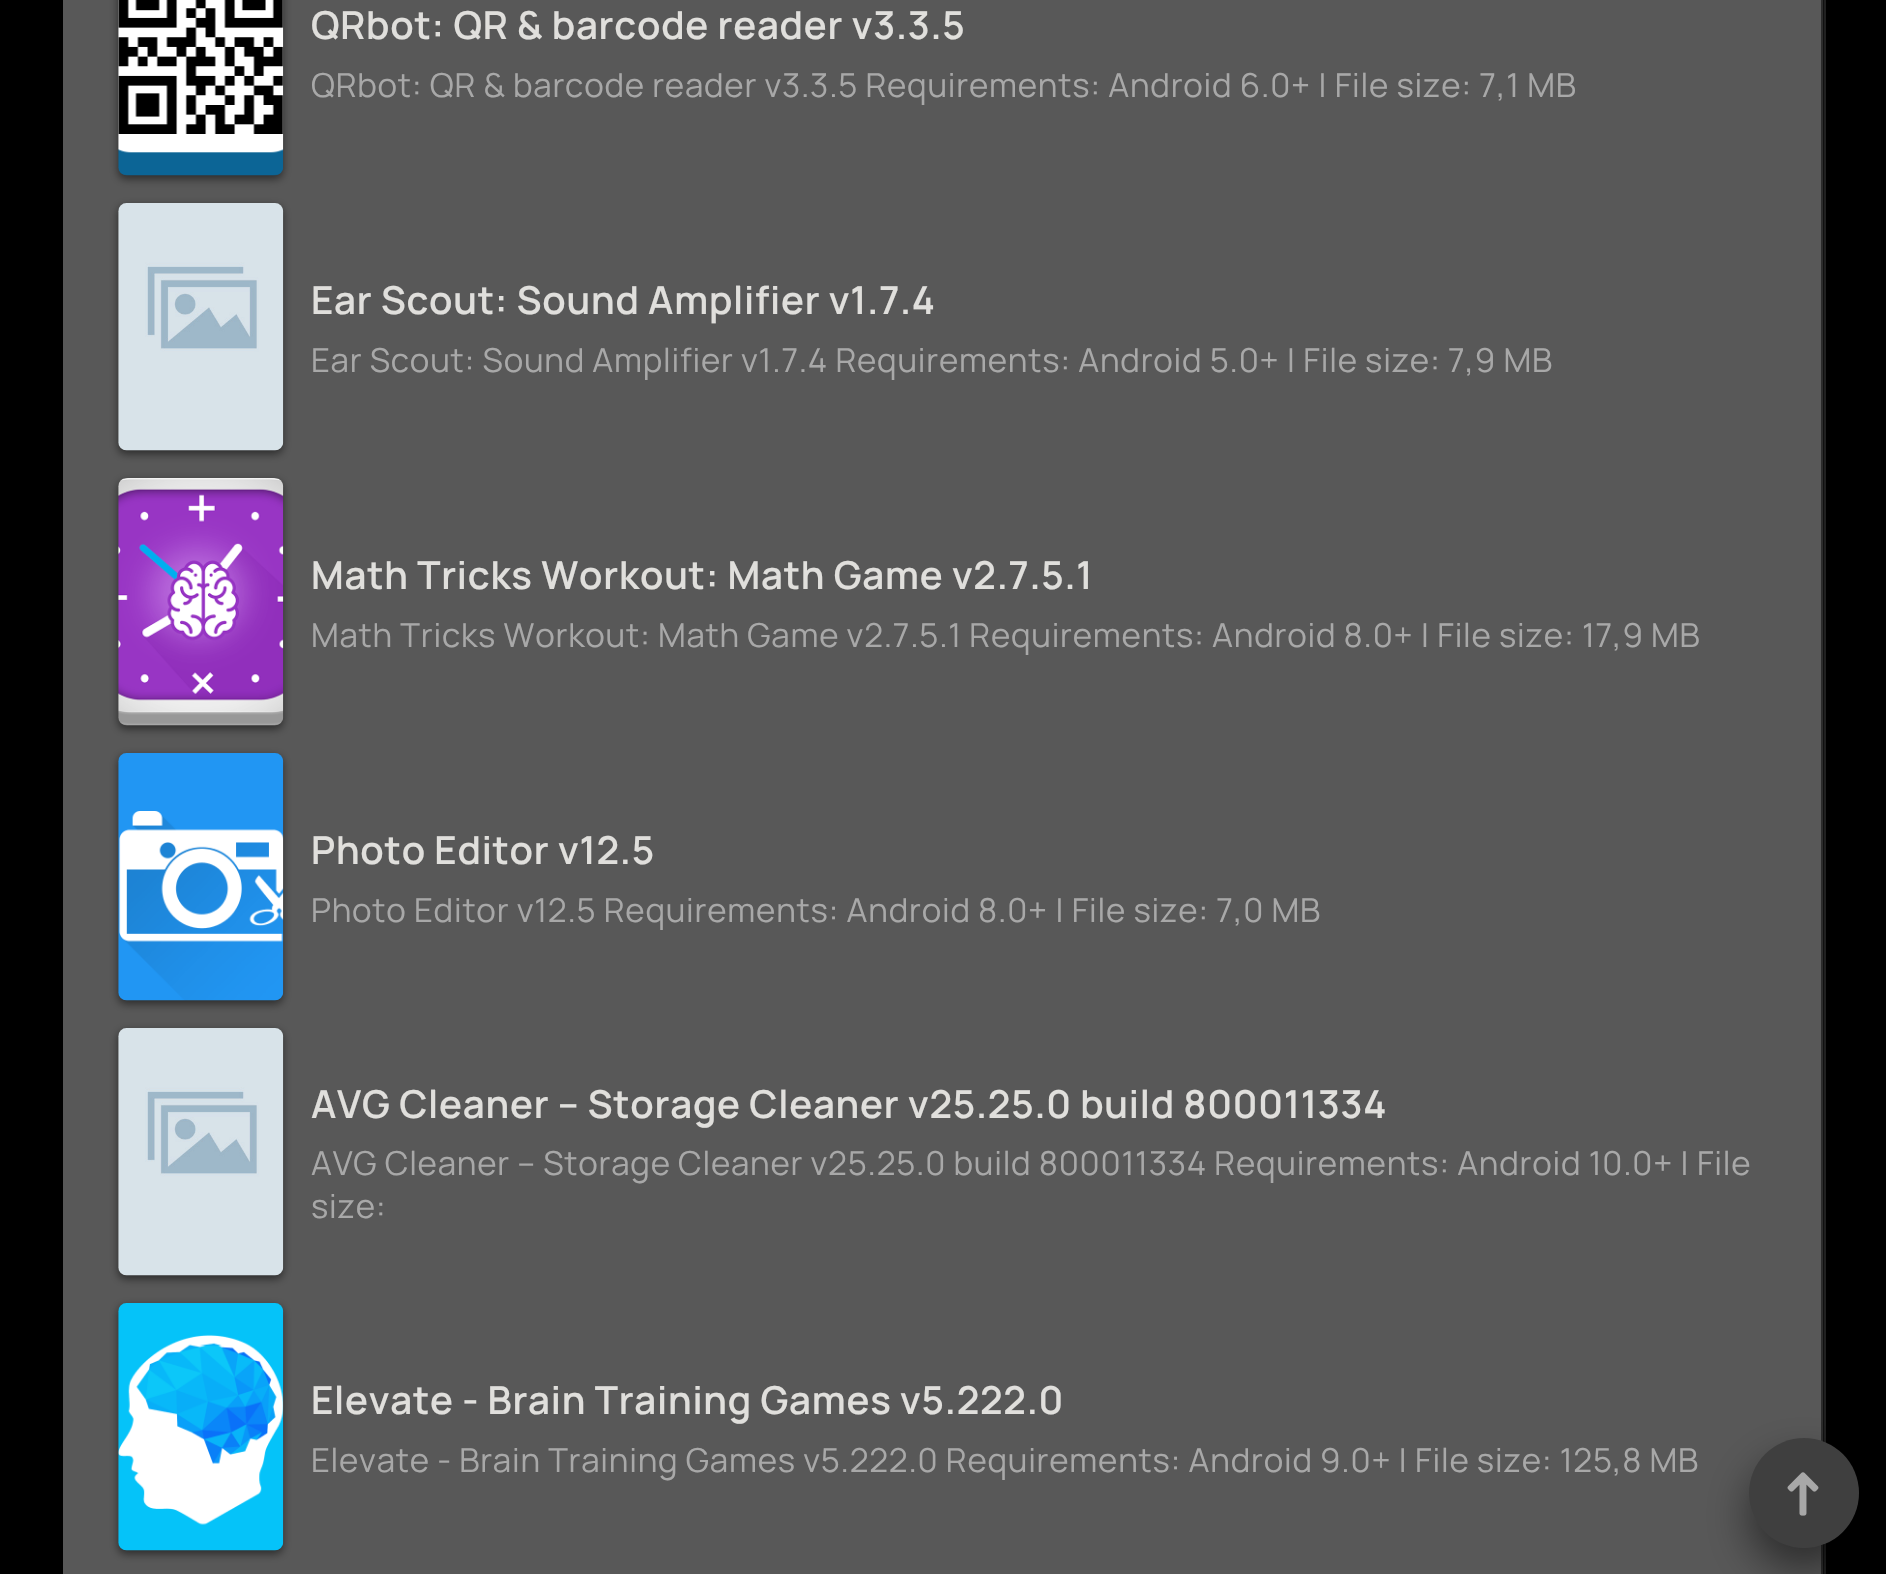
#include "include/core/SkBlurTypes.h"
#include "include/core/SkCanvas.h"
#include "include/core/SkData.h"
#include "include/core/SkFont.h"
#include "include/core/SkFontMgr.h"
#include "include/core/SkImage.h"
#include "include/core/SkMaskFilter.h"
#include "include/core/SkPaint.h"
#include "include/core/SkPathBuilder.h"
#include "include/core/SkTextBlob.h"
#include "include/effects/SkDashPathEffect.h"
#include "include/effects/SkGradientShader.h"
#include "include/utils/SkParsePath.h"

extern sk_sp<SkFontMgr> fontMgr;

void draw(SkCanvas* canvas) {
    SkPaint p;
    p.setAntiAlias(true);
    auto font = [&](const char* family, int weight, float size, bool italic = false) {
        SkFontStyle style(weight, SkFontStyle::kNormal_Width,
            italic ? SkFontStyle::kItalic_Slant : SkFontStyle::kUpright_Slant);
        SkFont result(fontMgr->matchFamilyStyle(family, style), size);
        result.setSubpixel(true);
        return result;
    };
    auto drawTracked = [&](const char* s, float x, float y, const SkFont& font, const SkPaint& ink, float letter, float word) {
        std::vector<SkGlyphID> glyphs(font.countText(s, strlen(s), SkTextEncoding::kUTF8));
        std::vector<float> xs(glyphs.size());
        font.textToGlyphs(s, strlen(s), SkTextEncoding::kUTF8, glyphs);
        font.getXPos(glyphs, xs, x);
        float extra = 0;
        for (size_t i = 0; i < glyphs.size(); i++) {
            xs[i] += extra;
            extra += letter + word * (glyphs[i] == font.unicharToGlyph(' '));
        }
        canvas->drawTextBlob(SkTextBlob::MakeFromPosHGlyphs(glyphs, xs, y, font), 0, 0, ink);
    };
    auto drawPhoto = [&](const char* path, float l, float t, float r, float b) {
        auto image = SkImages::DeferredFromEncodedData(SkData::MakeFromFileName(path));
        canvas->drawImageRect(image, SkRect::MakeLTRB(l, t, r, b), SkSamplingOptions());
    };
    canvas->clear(0xFF000000);
    {
        const struct { float l, t, r, b; SkColor color; } items[] = {
            {1823, 0, 1826, 1574, 0xFF202020},
            {63, 0, 1823, 1574, 0xFF585858},
            {1821, 0, 1824, 1574, 0x80000000},
        };
        for (auto [l, t, r, b, color] : items) {
            p.setColor(color);
            canvas->drawRect(SkRect::MakeLTRB(l, t, r, b), p);
        }
    }
    p.setMaskFilter(SkMaskFilter::MakeBlur(kNormal_SkBlurStyle, 4));
    canvas->drawRoundRect(SkRect::MakeLTRB(118, -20, 283, 179), 8, 8, p);
    p.setMaskFilter(nullptr);
    drawPhoto("media/1.png", 118, 0, 284, 176);
    auto font1 = font("Manrope", 200, 38.5f);
    p.setColor(0xFFE0DFDC);
    drawTracked("QRbot: QR & barcode reader v3.3.5", 311, 39, font1, p, 0.77f, 0);
    auto font2 = font("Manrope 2", 200, 33);
    p.setColor(0xFFA8A8A8);
    drawTracked("QRbot: QR & barcode reader v3.3.5 Requirements: Android 6.0+ | File size: 7,1 MB", 311, 97, font2, p, 0.77f, 0);
    p.setColor(0x80000000);
    p.setMaskFilter(SkMaskFilter::MakeBlur(kNormal_SkBlurStyle, 4));
    canvas->drawRoundRect(SkRect::MakeLTRB(118, 206, 283, 454), 8, 8, p);
    p.setMaskFilter(nullptr);
    drawPhoto("media/2.png", 118, 203, 284, 451);
    p.setColor(0xFFE0DFDC);
    drawTracked("Ear Scout: Sound Amplifier v1.7.4", 311, 314, font1, p, 0.77f, 0);
    p.setColor(0xFFA8A8A8);
    drawTracked("Ear Scout: Sound Amplifier v1.7.4 Requirements: Android 5.0+ | File size: 7,9 MB", 311, 372, font2, p, 0.77f, 0);
    p.setColor(0x80000000);
    p.setMaskFilter(SkMaskFilter::MakeBlur(kNormal_SkBlurStyle, 4));
    canvas->drawRoundRect(SkRect::MakeLTRB(118, 481, 283, 729), 8, 8, p);
    p.setMaskFilter(nullptr);
    drawPhoto("media/3.png", 118, 478, 284, 726);
    p.setColor(0xFFE0DFDC);
    drawTracked("Math Tricks Workout: Math Game v2.7.5.1", 311, 589, font1, p, 0.77f, 0);
    p.setColor(0xFFA8A8A8);
    drawTracked("Math Tricks Workout: Math Game v2.7.5.1 Requirements: Android 8.0+ | File size: 17,9 MB", 311, 647, font2, p, 0.77f, 0);
    p.setColor(0x80000000);
    p.setMaskFilter(SkMaskFilter::MakeBlur(kNormal_SkBlurStyle, 4));
    canvas->drawRoundRect(SkRect::MakeLTRB(118, 756, 283, 1004), 8, 8, p);
    p.setMaskFilter(nullptr);
    drawPhoto("media/4.png", 118, 753, 284, 1001);
    p.setColor(0xFFE0DFDC);
    drawTracked("Photo Editor v12.5", 311, 864, font1, p, 0.77f, 0);
    p.setColor(0xFFA8A8A8);
    drawTracked("Photo Editor v12.5 Requirements: Android 8.0+ | File size: 7,0 MB", 311, 922, font2, p, 0.77f, 0);
    p.setColor(0x80000000);
    p.setMaskFilter(SkMaskFilter::MakeBlur(kNormal_SkBlurStyle, 4));
    canvas->drawRoundRect(SkRect::MakeLTRB(118, 1031, 283, 1279), 8, 8, p);
    p.setMaskFilter(nullptr);
    drawPhoto("media/2.png", 118, 1028, 284, 1276);
    p.setColor(0xFFE0DFDC);
    drawTracked("AVG Cleaner – Storage Cleaner v25.25.0 build 800011334", 311, 1118, font1, p, 0.77f, 0);
    p.setColor(0xFFA8A8A8);
    drawTracked("AVG Cleaner – Storage Cleaner v25.25.0 build 800011334 Requirements: Android 10.0+ | File", 311, 1175, font2, p, 0.77f, 0);
    drawTracked("size:", 311, 1218, font2, p, 0.77f, 0);
    p.setColor(0x80000000);
    p.setMaskFilter(SkMaskFilter::MakeBlur(kNormal_SkBlurStyle, 4));
    canvas->drawRoundRect(SkRect::MakeLTRB(118, 1306, 283, 1554), 8, 8, p);
    p.setMaskFilter(nullptr);
    drawPhoto("media/5.png", 118, 1303, 284, 1551);
    p.setColor(0xFFE0DFDC);
    drawTracked("Elevate - Brain Training Games v5.222.0", 311, 1414, font1, p, 0.77f, 0);
    p.setColor(0xFFA8A8A8);
    drawTracked("Elevate - Brain Training Games v5.222.0 Requirements: Android 9.0+ | File size: 125,8 MB", 311, 1472, font2, p, 0.77f, 0);
    p.setColor(0x80000000);
    p.setMaskFilter(SkMaskFilter::MakeBlur(kNormal_SkBlurStyle, 22));
    canvas->drawRoundRect(SkRect::MakeLTRB(1749, 1460, 1859, 1570), 55, 55, p);
    p.setMaskFilter(nullptr);
    p.setColor(0xFF3F3F3F);
    canvas->drawCircle(1804, 1493, 55, p);
    drawPhoto("media/6.png", 1787, 1472, 1819, 1516);
}
